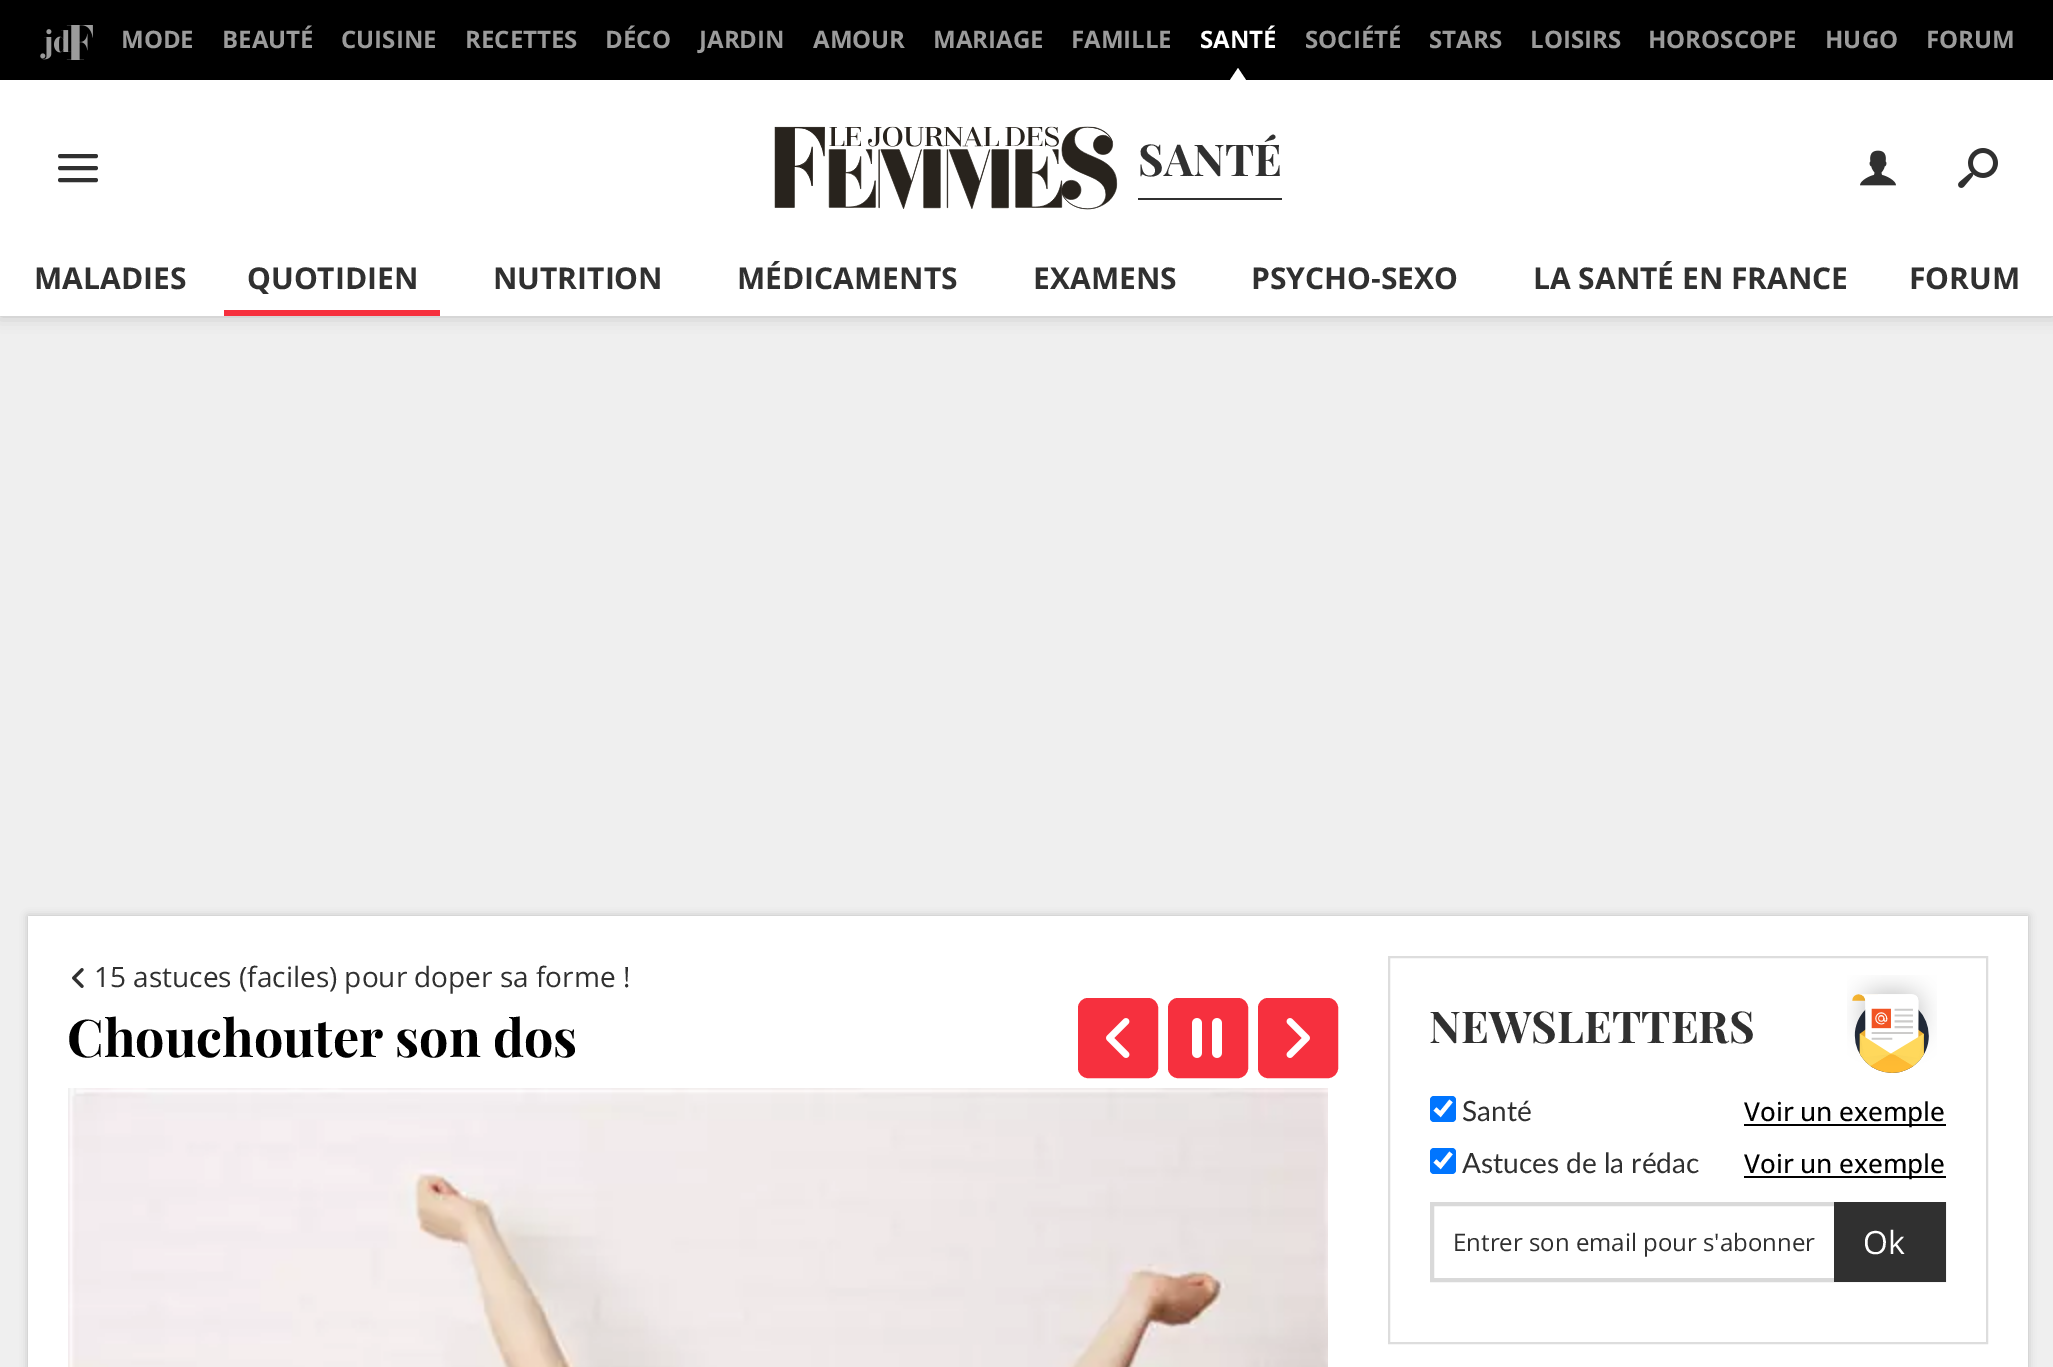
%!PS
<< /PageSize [2053 1367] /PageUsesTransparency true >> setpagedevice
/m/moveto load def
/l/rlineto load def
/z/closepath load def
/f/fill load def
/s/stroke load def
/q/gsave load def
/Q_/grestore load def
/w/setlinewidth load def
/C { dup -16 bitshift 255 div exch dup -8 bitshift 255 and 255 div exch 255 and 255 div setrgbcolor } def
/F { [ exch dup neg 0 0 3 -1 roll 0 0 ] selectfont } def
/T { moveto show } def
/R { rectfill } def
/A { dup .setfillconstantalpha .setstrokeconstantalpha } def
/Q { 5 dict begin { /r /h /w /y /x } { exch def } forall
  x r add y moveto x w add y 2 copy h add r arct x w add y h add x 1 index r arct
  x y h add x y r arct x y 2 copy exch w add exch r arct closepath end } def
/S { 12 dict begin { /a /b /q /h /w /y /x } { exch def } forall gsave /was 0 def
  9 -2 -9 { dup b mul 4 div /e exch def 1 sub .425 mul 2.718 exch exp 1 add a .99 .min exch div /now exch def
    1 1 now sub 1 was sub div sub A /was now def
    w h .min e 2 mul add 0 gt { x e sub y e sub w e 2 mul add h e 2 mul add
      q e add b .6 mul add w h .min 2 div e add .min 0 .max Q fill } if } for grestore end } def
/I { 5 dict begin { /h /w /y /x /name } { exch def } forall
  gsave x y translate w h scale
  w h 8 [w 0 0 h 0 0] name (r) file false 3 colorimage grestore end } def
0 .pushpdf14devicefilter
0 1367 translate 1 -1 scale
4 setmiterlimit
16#EFEFEF C
0 0 2053 1367 R
16#000000 C
0 0 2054 316 0 8 .2 S
16#FFFFFF C
0 80 2053 236 R
16#000000 C
0 0 2053 80 R
(1.rgb) 40 25 53 35 I
/OpenSans-Bold 24 F
16#9B9B9B C
(MODE) 121 48 T
(BEAUTÉ) 222 48 T
(CUISINE) 341 48 T
(RECETTES) 465 48 T
(DÉCO) 605 48 T
(JARDIN) 699 48 T
(AMOUR) 813 48 T
(MARIAGE) 933 48 T
(FAMILLE) 1071 48 T
16#FFFFFF C
(SANTÉ) 1200 48 T
1246 80 m -16 0 l 8 -12 l z f
16#9B9B9B C
(SOCIÉTÉ) 1305 48 T
(STARS) 1429 48 T
(LOISIRS) 1530 48 T
(HOROSCOPE) 1648 48 T
(HUGO) 1825 48 T
(FORUM) 1926 48 T
16#303030 C
4 w
1 setlinecap
60 168 m 36 0 l 60 156 m 36 0 l 60 180 m 36 0 l s
(2.rgb) 774 126 344 84 I
1138 198 144 2 R
/PlayfairDisplay-Bold 44 F
(SANTÉ) 1138 176 T
(3.rgb) 1860 150 36 36 I
(4.rgb) 1958 148 40 40 I
/OpenSans-Bold 30 F
(MALADIES) 34 289 T
16#F6303E C
224 310 216 6 R
16#303030 C
(QUOTIDIEN) 247 289 T
(NUTRITION) 493 289 T
(MÉDICAMENTS) 737 289 T
(EXAMENS) 1033 289 T
(PSYCHO-SEXO) 1251 289 T
(LA SANTÉ EN FRANCE) 1533 289 T
(FORUM) 1909 289 T
16#FFFFFF C
28 916 2000 451 R
q
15 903 m 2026 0 l 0 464 l -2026 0 l z 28 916 m 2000 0 l 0 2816 l -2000 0 l z eoclip newpath
16#000000 C
28 916 2000 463 0 4 .2 S
Q_
(5.rgb) 72 968 12 20 I
/OpenSans-Regular 28 F
16#303030 C
(15 astuces \(faciles\) pour doper sa forme !) 94 987 T
/PlayfairDisplay-Bold 52 F
16#000000 C
(Chouchouter son dos) 67 1057 T
16#F6303E C
1079 999 78 78 9 Q q f Q_
2 w
0 setlinecap
s
(6.rgb) 1106 1018 24 40 I
1169 999 78 78 9 Q q f Q_
s
(7.rgb) 1192 1018 30 40 I
1259 999 78 78 9 Q q f Q_
s
(8.rgb) 1286 1018 24 40 I
(9.rgb) 68 1088 1260 279 I
16#DDDDDD C
1389 957 598 386 rectstroke
/PlayfairDisplay-Bold 44 F
16#303030 C
(NEWSLETTERS) 1429 1043 T
(10.rgb) 1847 975 90 98 I
16#0075FF C
1430 1096 26 26 4 Q f
16#FFFFFF C
4.2 w
1435 1109 m 5.5 5 l 10.5 -13 l s
/Lato-Regular 28 F
16#303030 C
(Santé) 1462 1121 T
16#000000 C
1744 1124 202 2 R
/OpenSans-Medium 26 F
(Voir un exemple) 1744 1121 T
16#0075FF C
1430 1148 26 26 4 Q f
16#FFFFFF C
1435 1161 m 5.5 5 l 10.5 -13 l s
/Lato-Regular 28 F
16#303030 C
(Astuces de la rédac) 1462 1173 T
16#000000 C
1744 1176 202 2 R
/OpenSans-Medium 26 F
(Voir un exemple) 1744 1173 T
16#D9D9D9 C
4 w
1432 1204 512 76 rectstroke
/OpenSans-Regular 24 F
16#303030 C
(Entrer son email pour s'abonner) 1453 1251 T
1834 1202 112 80 R
/OpenSans-Regular 32 F
16#FFFFFF C
(Ok) 1863 1254 T
.poppdf14devicefilter showpage
